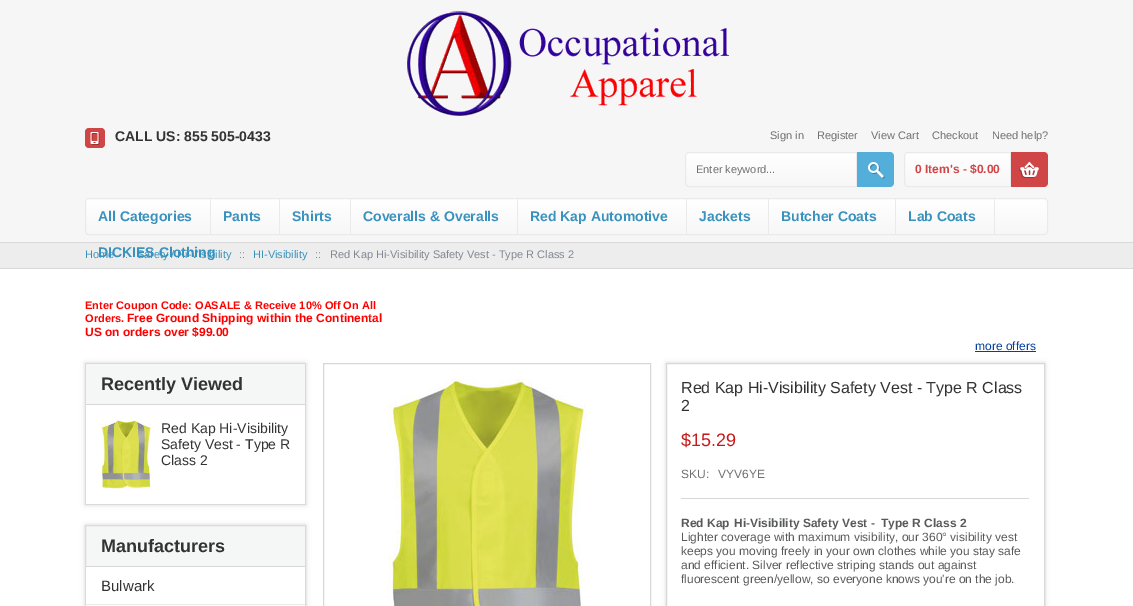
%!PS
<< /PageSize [1133 606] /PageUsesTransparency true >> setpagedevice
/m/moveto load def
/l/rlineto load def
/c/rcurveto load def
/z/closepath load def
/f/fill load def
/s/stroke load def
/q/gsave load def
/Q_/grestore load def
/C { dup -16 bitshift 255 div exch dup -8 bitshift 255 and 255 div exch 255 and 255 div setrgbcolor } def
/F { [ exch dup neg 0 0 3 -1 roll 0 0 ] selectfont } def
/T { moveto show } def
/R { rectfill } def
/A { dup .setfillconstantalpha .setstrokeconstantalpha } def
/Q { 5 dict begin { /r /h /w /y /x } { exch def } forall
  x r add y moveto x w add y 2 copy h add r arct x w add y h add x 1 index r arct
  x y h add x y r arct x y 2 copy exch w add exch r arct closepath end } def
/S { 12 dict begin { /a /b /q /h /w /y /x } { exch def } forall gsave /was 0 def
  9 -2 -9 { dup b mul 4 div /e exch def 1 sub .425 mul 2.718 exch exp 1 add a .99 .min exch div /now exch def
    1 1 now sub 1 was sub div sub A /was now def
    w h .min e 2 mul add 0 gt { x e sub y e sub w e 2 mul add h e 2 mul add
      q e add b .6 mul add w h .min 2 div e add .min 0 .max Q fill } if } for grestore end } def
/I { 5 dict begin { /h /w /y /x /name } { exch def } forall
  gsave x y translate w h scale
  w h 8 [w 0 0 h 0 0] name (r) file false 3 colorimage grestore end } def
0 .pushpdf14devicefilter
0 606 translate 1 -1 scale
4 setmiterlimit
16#FFFFFF C
0 0 1133 606 R
16#F6F6F6 C
0 0 1133 242 R
16#D8D8D8 C
0 268 1133 1 R
(1.rgb) 407 11 322 105 I
16#D04545 C
85 128 20 20 4 Q f
(2.rgb) 90 132 10 13 I
/LiberationSans-Bold 14 F
16#333333 C
(CALL US: 855 505-0433) 115 141 T
/LiberationSans-Regular 11 F
16#6F6F6F C
(Sign in) 770 139 T
(Register) 817 139 T
(View Cart) 871 139 T
(Checkout) 932 139 T
(Need help?) 992 139 T
q
689 152 m 168 0 l 0 35 l -168 0 l -2 0 -4 -2 -4 -4 c 0 -27 l 0 -2 2 -4 4 -4 c z clip newpath
q 685 153 m 171 0 l 0 33 l -171 0 l z clip newpath
<< /ShadingType 2 /ColorSpace /DeviceRGB /Coords [771 153 771 186] /Extend [true true] /Function << /FunctionType 2 /Domain [0 1] /C0 [1 1 1] /C1 [.969 .969 .969] /N 1 >> >> shfill Q_
Q_
16#EAEAEA C
689 152.5 m 167.5 0 l 0 34 l -167.5 0 l -2 0 -3.5 -1.5 -3.5 -3.5 c 0 -27 l 0 -2 1.5 -3.5 3.5 -3.5 c z s
16#6F6F6F C
(Enter keyword...) 696 173 T
16#54AEDA C
857 152 m 33 0 l 2 0 4 2 4 4 c 0 27 l 0 2 -2 4 -4 4 c -33 0 l z f
(3.rgb) 868 162 17 17 I
q
908 152 m 103 0 l 0 35 l -103 0 l -2 0 -4 -2 -4 -4 c 0 -27 l 0 -2 2 -4 4 -4 c z clip newpath
q 904 153 m 106 0 l 0 33 l -106 0 l z clip newpath
<< /ShadingType 2 /ColorSpace /DeviceRGB /Coords [958 153 958 186] /Extend [true true] /Function << /FunctionType 2 /Domain [0 1] /C0 [1 1 1] /C1 [.969 .969 .969] /N 1 >> >> shfill Q_
Q_
16#EAEAEA C
908 152.5 m 102.5 0 l 0 34 l -102.5 0 l -2 0 -3.5 -1.5 -3.5 -3.5 c 0 -27 l 0 -2 1.5 -3.5 3.5 -3.5 c z s
/LiberationSans-Bold 12 F
16#D14546 C
(0 Item's - $0.00) 915 173 T
16#D04545 C
1011 152 m 33 0 l 2 0 4 2 4 4 c 0 27 l 0 2 -2 4 -4 4 c -33 0 l z f
(4.rgb) 1019 162 20 16 I
q
85 198 963 37 4 Q clip newpath
q 85 199 m 963 0 l 0 35 l -963 0 l z clip newpath
<< /ShadingType 2 /ColorSpace /DeviceRGB /Coords [567 199 567 234] /Extend [true true] /Function << /FunctionType 2 /Domain [0 1] /C0 [1 1 1] /C1 [.969 .969 .969] /N 1 >> >> shfill Q_
Q_
16#EAEAEA C
85.5 198.5 962 36 3.5 Q s
210 199 1 36 R
86 234 2 1 R
/LiberationSans-Bold 14 F
16#3892BD C
(All Categories) 98 221 T
16#EAEAEA C
279 199 1 36 R
16#3892BD C
(Pants) 223 221 T
16#EAEAEA C
350 199 1 36 R
16#3892BD C
(Shirts) 292 221 T
16#EAEAEA C
517 199 1 36 R
16#3892BD C
(Coveralls & Overalls) 363 221 T
16#EAEAEA C
686 199 1 36 R
16#3892BD C
(Red Kap Automotive) 530 221 T
16#EAEAEA C
768 199 1 36 R
16#3892BD C
(Jackets) 699 221 T
16#EAEAEA C
895 199 1 36 R
16#3892BD C
(Butcher Coats) 781 221 T
16#EAEAEA C
994 199 1 36 R
16#3892BD C
(Lab Coats) 908 221 T
16#EDEDED C
0 243 1133 25 R
/LiberationSans-Regular 11 F
16#3892BD C
(Home) 85 258 T
16#818891 C
(::) 122 258 T
16#3892BD C
(Safety / Hi-Visibility) 137 258 T
/LiberationSans-Bold 14 F
(DICKIES Clothing) 98 257 T
16#D8D8D8 C
0 242 1133 1 R
/LiberationSans-Regular 11 F
16#818891 C
(::) 239 258 T
16#3892BD C
(HI-Visibility) 253 258 T
16#818891 C
(::) 315 258 T
(Red Kap Hi-Visibility Safety Vest - Type R Class 2) 330 258 T
/LiberationSans-Bold 11 F
16#FF0000 C
(Enter Coupon Code: OASALE & Receive 10% Off On All) 85 309 T
(Orders.) 85 322 T
/LiberationSans-Bold 12 F
(Free Ground Shipping within the Continental) 127 322 T
(US on orders over $99.00) 85 336 T
/LiberationSans-Regular 12 F
16#043FA0 C
(more offers) 975 350 T
975 351 61 1 R
16#D8D8D8 C
85 363 221 142 0 2.5 1 S
16#F5F6F6 C
86 364 219 40 R
16#DADADA C
85 363 221 1 R
305 363 1 142 R
85 363 1 142 R
16#D8D8D8 C
86 404 219 1 R
/LiberationSans-Bold 18 F
16#333333 C
(Recently Viewed) 101 390 T
16#FFFFFF C
86 405 219 99 R
16#DADADA C
86 504 219 1 R
(5.rgb) 101 420 50 69 I
/LiberationSans-Regular 14 F
16#333333 C
(Red Kap Hi-Visibility) 161 433 T
(Safety Vest - Type R) 161 449 T
(Class 2) 161 465 T
16#D8D8D8 C
85 525 221 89 0 2.5 1 S
16#F5F6F6 C
86 526 219 40 R
16#DADADA C
85.5 525.5 220 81 rectstroke
16#D8D8D8 C
86 566 219 1 R
/LiberationSans-Bold 18 F
16#333333 C
(Manufacturers) 101 552 T
16#FFFFFF C
86 567 219 39 R
16#EAEAEA C
86 604 219 1 R
/LiberationSans-Regular 15 F
16#333333 C
(Bulwark) 101 591 T
16#D8D8D8 C
323.5 363.5 327 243 rectstroke
(6.rgb) 388 379 198 227 I
q
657 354 m 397 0 l 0 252 l -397 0 l z 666 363 m 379 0 l 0 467 l -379 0 l z eoclip newpath
666 363 379 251 0 2.5 1 S
Q_
666.5 363.5 378 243 rectstroke
/LiberationSans-Regular 16 F
16#333333 C
(Red Kap Hi-Visibility Safety Vest - Type R Class) 681 393 T
(2) 681 411 T
/LiberationSans-Regular 18 F
16#C71919 C
($15.29) 681 446 T
16#D8D8D8 C
681 498 348 1 R
/LiberationSans-Regular 12 F
16#6F6F6F C
(SKU:) 681 478 T
(VYV6YE) 718 478 T
/LiberationSans-Bold 12 F
16#58595B C
(Red Kap) 681 527 T
(Hi-Visibility Safety Vest -) 734 527 T
(Type R Class 2) 881 527 T
/LiberationSans-Regular 12 F
(Lighter coverage with maximum visibility, our 360° visibility vest) 681 541 T
(keeps you moving freely in your own clothes while you stay safe) 681 555 T
(and efficient. Silver reflective striping stands out against) 681 569 T
(fluorescent green/yellow, so everyone knows you're on the job.) 681 583 T
.poppdf14devicefilter showpage
